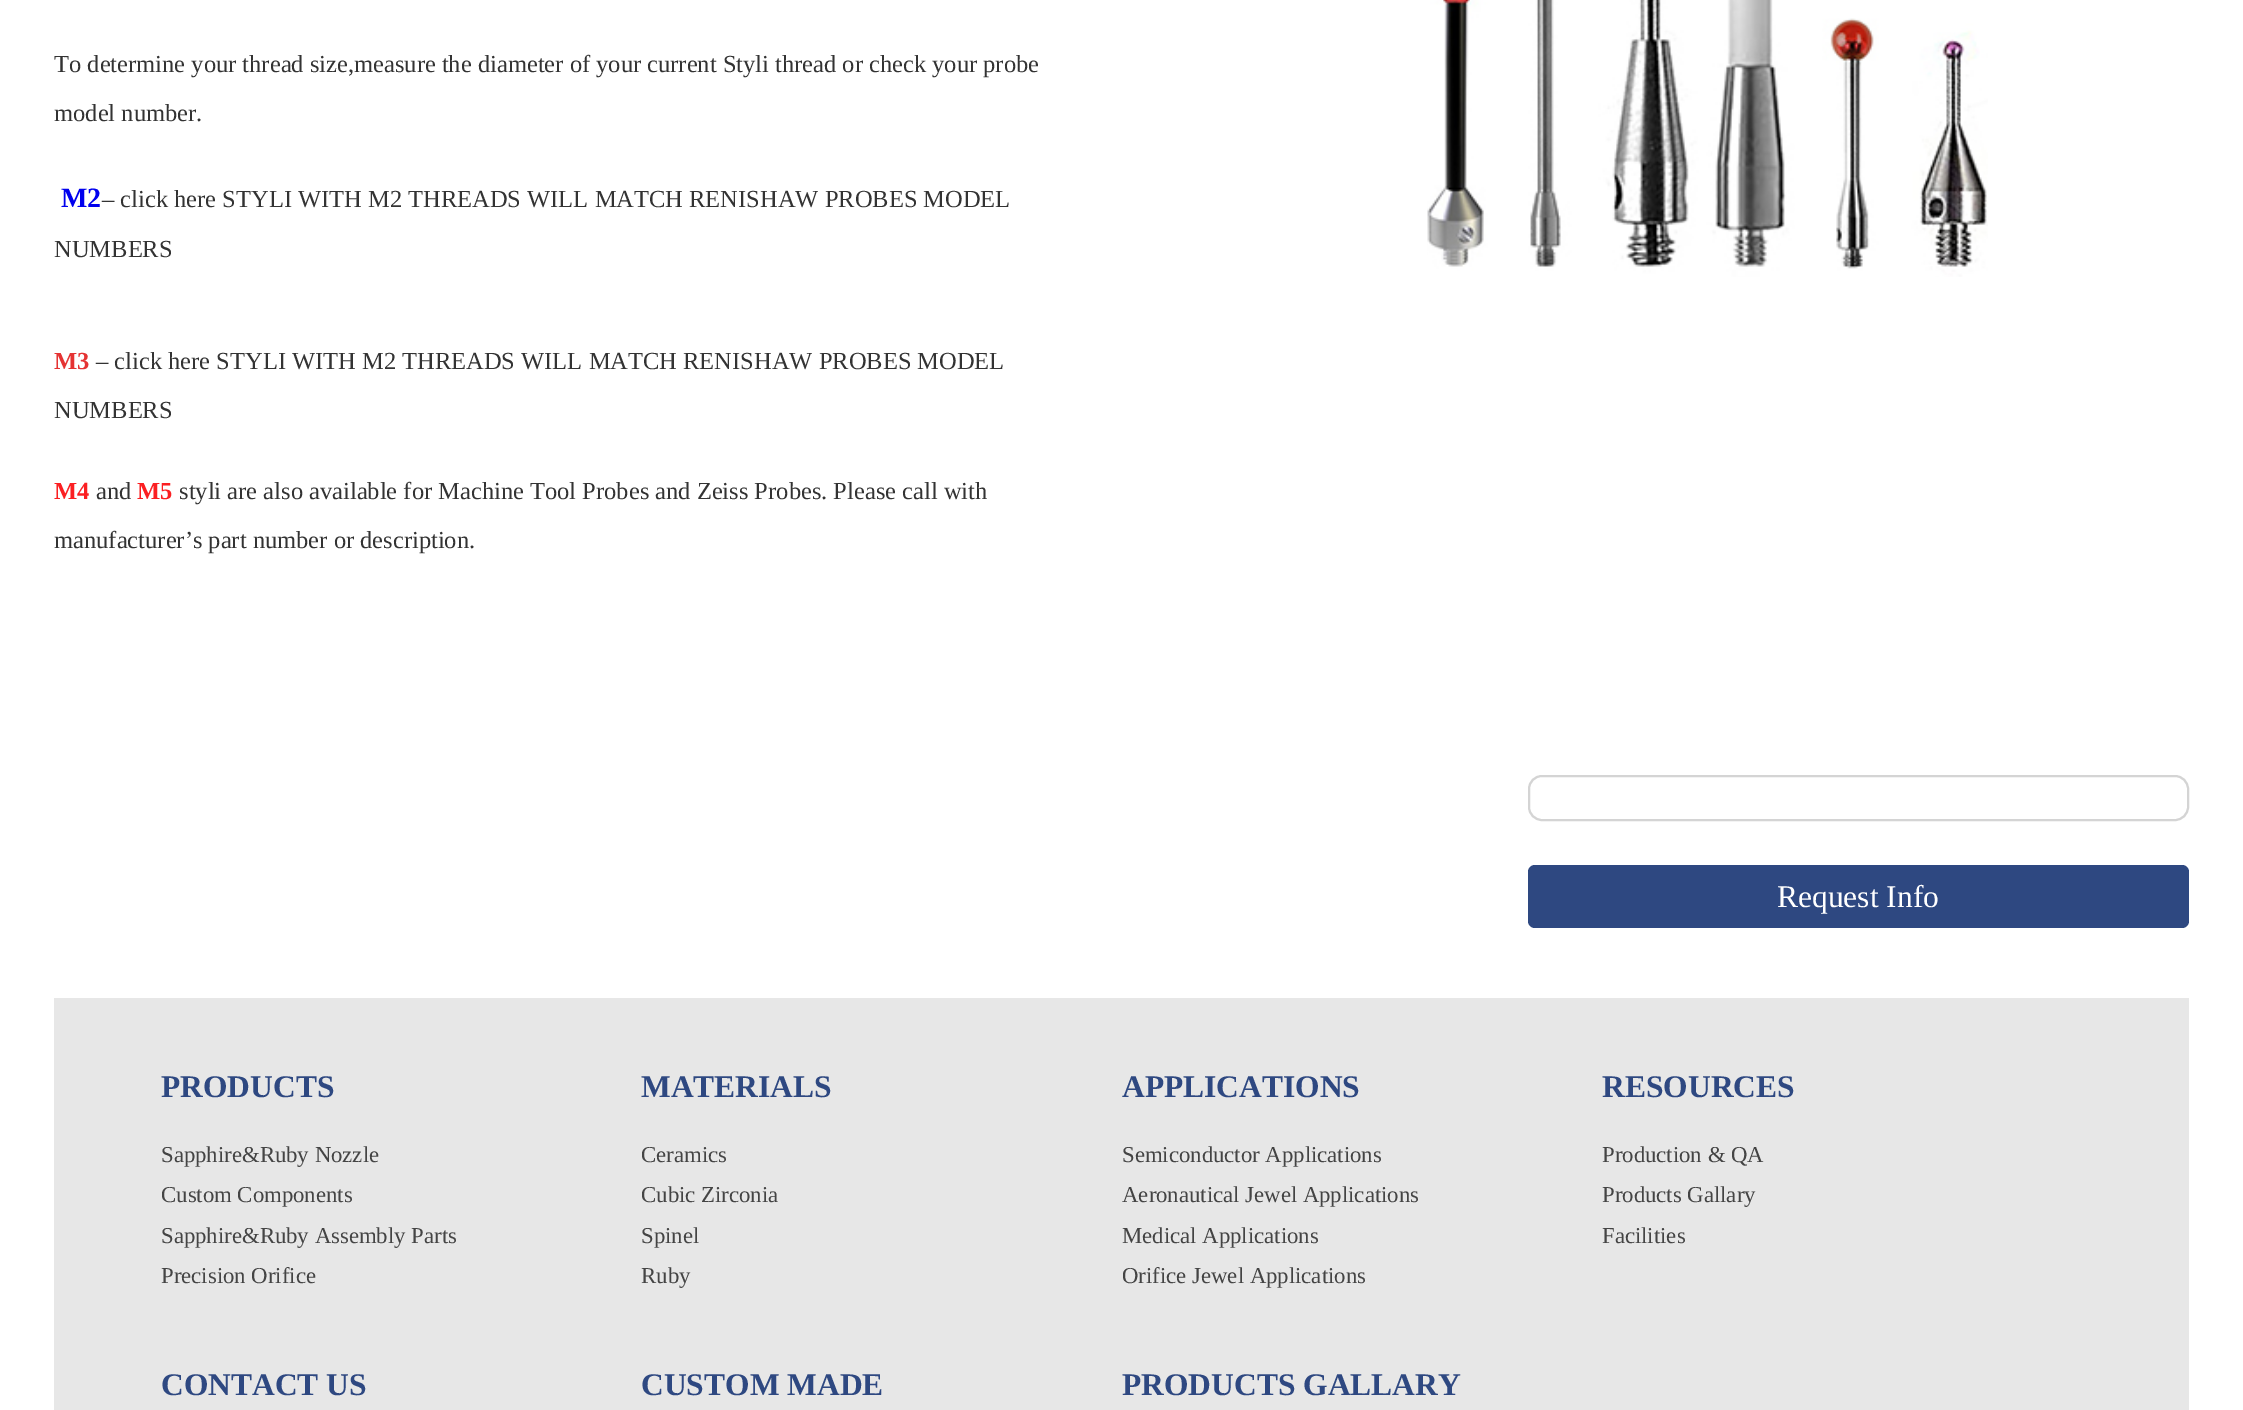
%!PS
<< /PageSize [2243 1410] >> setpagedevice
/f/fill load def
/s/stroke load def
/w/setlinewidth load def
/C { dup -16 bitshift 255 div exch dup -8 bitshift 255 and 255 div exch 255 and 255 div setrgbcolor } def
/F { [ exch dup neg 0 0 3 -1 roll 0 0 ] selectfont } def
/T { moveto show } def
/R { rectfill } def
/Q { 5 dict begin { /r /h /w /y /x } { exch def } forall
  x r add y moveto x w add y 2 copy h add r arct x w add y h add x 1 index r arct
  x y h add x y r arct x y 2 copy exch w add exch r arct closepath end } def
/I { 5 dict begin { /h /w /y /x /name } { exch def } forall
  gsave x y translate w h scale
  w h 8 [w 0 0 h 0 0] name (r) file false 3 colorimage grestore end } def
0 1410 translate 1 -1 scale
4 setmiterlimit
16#FFFFFF C
0 0 2243 1410 R
/LiberationSerif-Regular 24.5 F
16#333333 C
(To determine your thread size,measure the diameter of your current Styli thread or check your probe) 54 72 T
(model number.) 54 121 T
/LiberationSerif-Bold 28 F
16#0000EE C
(M2) 61 207 T
/LiberationSerif-Regular 24.5 F
16#333333 C
(– click here STYLI WITH M2 THREADS WILL MATCH RENISHAW PROBES MODEL) 102 207 T
(NUMBERS) 54 257 T
/LiberationSerif-Bold 24.5 F
16#E53333 C
(M3) 54 369 T
/LiberationSerif-Regular 24.5 F
16#333333 C
(– click here STYLI WITH M2 THREADS WILL MATCH RENISHAW PROBES MODEL) 96 369 T
(NUMBERS) 54 418 T
/LiberationSerif-Bold 24.5 F
16#FB1F22 C
(M4) 54 499 T
/LiberationSerif-Regular 24.5 F
16#333333 C
(and) 96 499 T
/LiberationSerif-Bold 24.5 F
16#FB1F22 C
(M5) 137 499 T
/LiberationSerif-Regular 24.5 F
16#333333 C
(styli are also available for Machine Tool Probes and Zeiss Probes. Please call with) 179 499 T
(manufacturer’s part number or description.) 54 548 T
(1.rgb) 1427 0 561 277 I
16#D4D4D4 C
2 w
1529 776 659 44 13 Q s
16#2E4881 C
1528 865 661 63 7 Q f
/LiberationSerif-Regular 31.5 F
16#FFFFFF C
(Request Info) 1777 907 T
16#E7E7E7 C
54 998 2135 412 R
/LiberationSerif-Bold 31.5 F
16#2E4881 C
(PRODUCTS) 161 1097 T
/LiberationSerif-Regular 22.75 F
16#444444 C
(Sapphire&Ruby Nozzle) 161 1162 T
(Custom Components) 161 1202 T
(Sapphire&Ruby Assembly Parts) 161 1243 T
(Precision Orifice) 161 1283 T
/LiberationSerif-Bold 31.5 F
16#2E4881 C
(MATERIALS) 641 1097 T
/LiberationSerif-Regular 22.75 F
16#444444 C
(Ceramics) 641 1162 T
(Cubic Zirconia) 641 1202 T
(Spinel) 641 1243 T
(Ruby) 641 1283 T
/LiberationSerif-Bold 31.5 F
16#2E4881 C
(APPLICATIONS) 1122 1097 T
/LiberationSerif-Regular 22.75 F
16#444444 C
(Semiconductor Applications) 1122 1162 T
(Aeronautical Jewel Applications) 1122 1202 T
(Medical Applications) 1122 1243 T
(Orifice Jewel Applications) 1122 1283 T
/LiberationSerif-Bold 31.5 F
16#2E4881 C
(RESOURCES) 1602 1097 T
/LiberationSerif-Regular 22.75 F
16#444444 C
(Production & QA) 1602 1162 T
(Products Gallary) 1602 1202 T
(Facilities) 1602 1243 T
/LiberationSerif-Bold 31.5 F
16#2E4881 C
(CONTACT US) 161 1395 T
(CUSTOM MADE) 641 1395 T
(PRODUCTS GALLARY) 1122 1395 T
showpage
